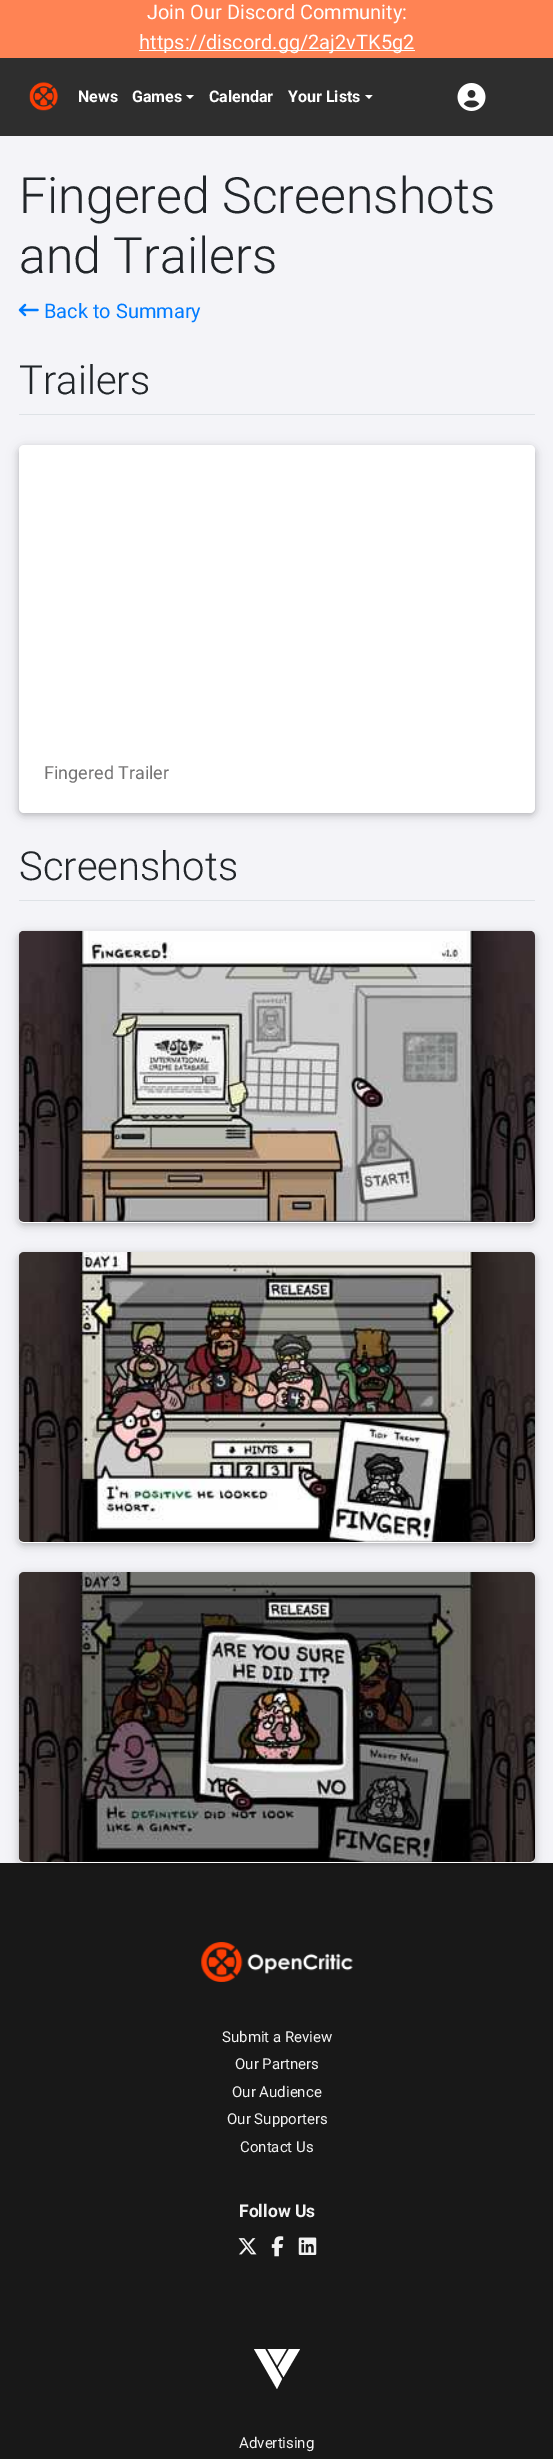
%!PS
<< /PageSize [553 2459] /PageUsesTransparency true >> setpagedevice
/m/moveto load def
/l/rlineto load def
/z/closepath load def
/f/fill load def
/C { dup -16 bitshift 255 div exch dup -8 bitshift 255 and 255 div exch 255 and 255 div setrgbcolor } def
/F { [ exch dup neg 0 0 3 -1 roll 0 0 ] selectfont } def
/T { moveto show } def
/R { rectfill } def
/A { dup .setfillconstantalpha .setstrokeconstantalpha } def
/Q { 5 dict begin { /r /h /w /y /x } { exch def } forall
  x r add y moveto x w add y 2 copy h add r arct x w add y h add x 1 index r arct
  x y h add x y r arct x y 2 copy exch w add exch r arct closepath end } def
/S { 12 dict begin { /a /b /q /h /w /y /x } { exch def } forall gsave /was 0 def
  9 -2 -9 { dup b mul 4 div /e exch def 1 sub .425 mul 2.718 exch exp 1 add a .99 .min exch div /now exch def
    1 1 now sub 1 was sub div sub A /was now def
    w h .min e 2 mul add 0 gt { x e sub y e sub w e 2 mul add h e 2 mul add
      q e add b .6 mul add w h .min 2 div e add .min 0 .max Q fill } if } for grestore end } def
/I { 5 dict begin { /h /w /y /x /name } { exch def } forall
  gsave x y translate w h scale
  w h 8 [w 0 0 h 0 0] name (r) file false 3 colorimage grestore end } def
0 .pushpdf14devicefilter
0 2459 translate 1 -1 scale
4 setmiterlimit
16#F4F4F8 C
0 0 553 2459 R
16#FF8354 C
0 0 553 58 R
/Roboto-Regular 20 F
16#FFFFFF C
(Join Our Discord Community:) 147 19 T
139 50 276 1 R
(https://discord.gg/2aj2vTK5g2) 139 49 T
16#2E2E2E C
0 58 553 78 R
(1.rgb) 29 82 29 29 I
/Roboto-Bold 16 F
16#FFFFFF C
(News) 78 102 T
(Games) 132 102 T
186 95 m 8 0 l -4 4 l z f
(Calendar) 209 102 T
(Your Lists) 288 102 T
365 95 m 7.5 0 l -3.5 4 l z f
(2.rgb) 457 83 29 28 I
/Roboto-Light 50 F
16#212529 C
(Fingered Screenshots) 19 213 T
(and Trailers) 19 273 T
(3.rgb) 18 303 21 14 I
/Roboto-Regular 20 F
16#007BFF C
(Back to Summary) 44 318 T
16#DEE2E6 C
19 414 516 1 R
/Roboto-Light 40 F
16#212529 C
(Trailers) 19 394 T
16#000000 C
19 448 516 367 5 6 .12 S
19 448 516 367 5 3 .16 S
16#FFFFFF C
19 445 516 368 5 Q f
/Roboto-Regular 18 F
16#747373 C
(Fingered Trailer) 44 779 T
16#DEE2E6 C
19 900 516 1 R
/Roboto-Light 40 F
16#212529 C
(Screenshots) 19 880 T
16#000000 C
19 934 516 291 5 6 .12 S
19 934 516 291 5 3 .16 S
16#FFFFFF C
19 931 516 292 5 Q f
(4.rgb) 18 930 517 292 I
16#000000 C
19 1255 516 290 5 6 .12 S
19 1255 516 290 5 3 .16 S
16#FFFFFF C
19 1253 516 290 5 Q f
(5.rgb) 18 1252 517 290 I
16#181818 C
0 1863 553 596 R
16#000000 C
19 1575 516 290 5 6 .12 S
19 1575 516 290 5 3 .16 S
16#FFFFFF C
19 1573 516 290 5 Q f
(6.rgb) 18 1572 517 290 I
(7.rgb) 201 1942 152 40 I
/Roboto-Regular 15 F
16#F2F2F2 C
(Submit a Review) 222 2042 T
(Our Partners) 235 2069 T
(Our Audience) 232 2097 T
(Our Supporters) 227 2124 T
(Contact Us) 240 2152 T
/Roboto-Bold 17.5 F
(Follow Us) 239 2217 T
(8.rgb) 238 2238 19 17 I
(9.rgb) 271 2236 13 21 I
(10.rgb) 298 2237 19 18 I
16#FFFFFF C
254 2349 m 23 40 l 5 -10 l -17 -30 l z f
286.5 2349 m -19 0 l 9.5 16.5 l z f
289 2349 m -11 18.5 l 5.5 9.5 l 16.5 -28 l z f
/Roboto-Regular 15 F
16#F2F2F2 C
(Advertising) 239 2448 T
.poppdf14devicefilter showpage
